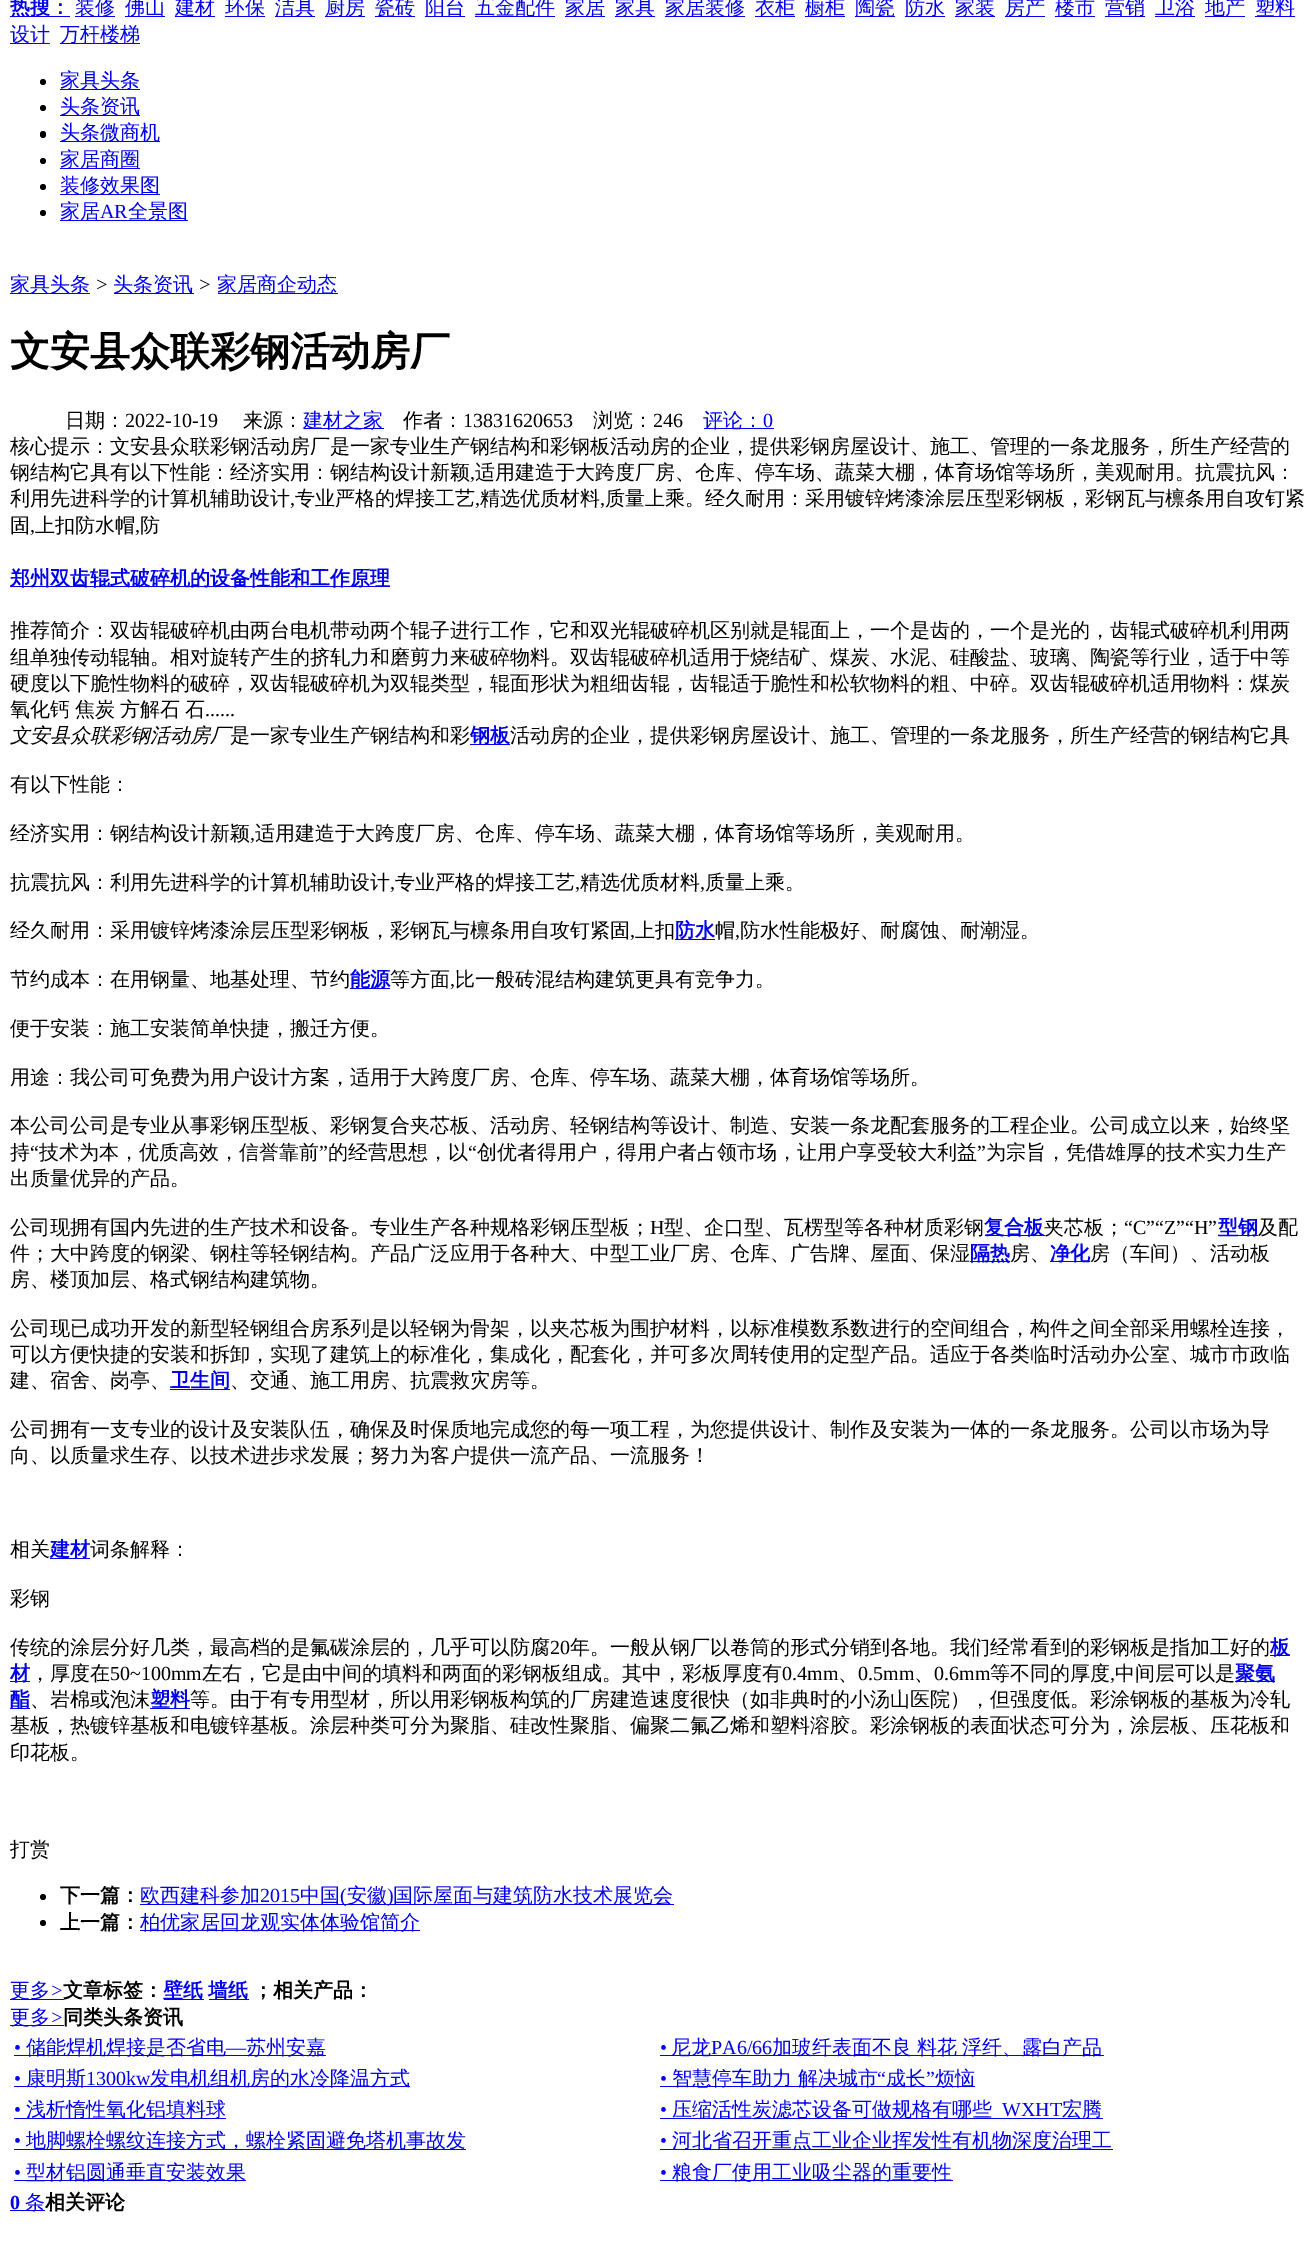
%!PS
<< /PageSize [1315 2249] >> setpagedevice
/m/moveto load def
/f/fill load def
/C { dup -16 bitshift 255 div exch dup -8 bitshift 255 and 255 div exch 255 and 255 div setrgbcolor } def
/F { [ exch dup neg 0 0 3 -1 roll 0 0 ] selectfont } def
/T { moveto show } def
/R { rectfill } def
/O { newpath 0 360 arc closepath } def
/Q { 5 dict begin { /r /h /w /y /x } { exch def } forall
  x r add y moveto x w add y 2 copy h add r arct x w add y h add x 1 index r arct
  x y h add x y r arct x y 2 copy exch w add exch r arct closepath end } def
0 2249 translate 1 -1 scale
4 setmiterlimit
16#FFFFFF C
0 0 1315 2249 R
16#0000EE C
10 16 60 1 R
/WenQuanYiZenHei-Bold 20 F
(热搜：) 10 14 T
75 16 40 1 R
/WenQuanYiZenHei-Medium 20 F
(装修) 75 14 T
125 16 40 1 R
(佛山) 125 14 T
175 16 40 1 R
(建材) 175 14 T
225 16 40 1 R
(环保) 225 14 T
275 16 40 1 R
(洁具) 275 14 T
325 16 40 1 R
(厨房) 325 14 T
375 16 40 1 R
(瓷砖) 375 14 T
425 16 40 1 R
(阳台) 425 14 T
475 16 80 1 R
(五金配件) 475 14 T
565 16 40 1 R
(家居) 565 14 T
615 16 40 1 R
(家具) 615 14 T
665 16 80 1 R
(家居装修) 665 14 T
755 16 40 1 R
(衣柜) 755 14 T
805 16 40 1 R
(橱柜) 805 14 T
855 16 40 1 R
(陶瓷) 855 14 T
905 16 40 1 R
(防水) 905 14 T
955 16 40 1 R
(家装) 955 14 T
1005 16 40 1 R
(房产) 1005 14 T
1055 16 40 1 R
(楼市) 1055 14 T
1105 16 40 1 R
(营销) 1105 14 T
1155 16 40 1 R
(卫浴) 1155 14 T
1205 16 40 1 R
(地产) 1205 14 T
1255 16 40 1 R
(塑料) 1255 14 T
10 43 40 1 R
(设计) 10 41 T
60 43 80 1 R
(万杆楼梯) 60 41 T
16#000000 C
43 82 3 O f
16#0000EE C
60 89 80 1 R
(家具头条) 60 87 T
16#000000 C
43 108 3 O f
16#0000EE C
60 115 80 1 R
(头条资讯) 60 113 T
16#000000 C
40 131 6 7 3 Q f
16#0000EE C
60 141 100 1 R
(头条微商机) 60 139 T
16#000000 C
43 161 3 O f
16#0000EE C
60 168 80 1 R
(家居商圈) 60 166 T
16#000000 C
43 187 3 O f
16#0000EE C
60 194 100 1 R
(装修效果图) 60 192 T
16#000000 C
43 213 3 O f
16#0000EE C
60 220 128 1 R
(家居) 60 218 T
/LiberationSerif-Regular 20 F
(AR) 100 218 T
/WenQuanYiZenHei-Medium 20 F
(全景图) 128 218 T
10 293 80 1 R
(家具头条) 10 291 T
/LiberationSerif-Italic 20 F
16#000000 C
(>) 95 291 T
16#0000EE C
114 293 80 1 R
/WenQuanYiZenHei-Medium 20 F
(头条资讯) 113 291 T
/LiberationSerif-Italic 20 F
16#000000 C
(>) 198 291 T
16#0000EE C
218 293 120 1 R
/WenQuanYiZenHei-Medium 20 F
(家居商企动态) 217 291 T
/WenQuanYiZenHei-Bold 40 F
16#000000 C
(文安县众联彩钢活动房厂) 10 365 T
/WenQuanYiZenHei-Medium 20 F
(日期：) 65 427 T
/LiberationSerif-Regular 20 F
(2022-10-19) 125 427 T
/WenQuanYiZenHei-Medium 20 F
(来源：) 243 427 T
16#0000EE C
304 428 80 1 R
(建材之家) 303 427 T
16#000000 C
(作者：) 403 427 T
/LiberationSerif-Regular 20 F
(13831620653) 463 427 T
/WenQuanYiZenHei-Medium 20 F
(浏览：) 593 427 T
/LiberationSerif-Regular 20 F
(246) 653 427 T
16#0000EE C
704 428 70 1 R
/WenQuanYiZenHei-Medium 20 F
(评论：) 703 427 T
/LiberationSerif-Regular 20 F
(0) 763 427 T
/WenQuanYiZenHei-Medium 20 F
16#000000 C
(核心提示：文安县众联彩钢活动房厂是一家专业生产钢结构和彩钢板活动房的企业，提供彩钢房屋设计、施工、管理的一条龙服务，所生产经营的) 10 453 T
(钢结构它具有以下性能：经济实用：钢结构设计新颖) 10 479 T
/LiberationSerif-Regular 20 F
(,) 470 479 T
/WenQuanYiZenHei-Medium 20 F
(适用建造于大跨度厂房、仓库、停车场、蔬菜大棚，体育场馆等场所，美观耐用。抗震抗风：) 475 479 T
(利用先进科学的计算机辅助设计) 10 505 T
/LiberationSerif-Regular 20 F
(,) 290 505 T
/WenQuanYiZenHei-Medium 20 F
(专业严格的焊接工艺) 295 505 T
/LiberationSerif-Regular 20 F
(,) 475 505 T
/WenQuanYiZenHei-Medium 20 F
(精选优质材料) 480 505 T
/LiberationSerif-Regular 20 F
(,) 600 505 T
/WenQuanYiZenHei-Medium 20 F
(质量上乘。经久耐用：采用镀锌烤漆涂层压型彩钢板，彩钢瓦与檩条用自攻钉紧) 605 505 T
(固) 10 532 T
/LiberationSerif-Regular 20 F
(,) 30 532 T
/WenQuanYiZenHei-Medium 20 F
(上扣防水帽) 35 532 T
/LiberationSerif-Regular 20 F
(,) 135 532 T
/WenQuanYiZenHei-Medium 20 F
(防) 140 532 T
16#0000EE C
10 586 380 1 R
/WenQuanYiZenHei-Bold 20 F
(郑州双齿辊式破碎机的设备性能和工作原理) 10 585 T
/WenQuanYiZenHei-Medium 20 F
16#000000 C
(推荐简介：双齿辊破碎机由两台电机带动两个辊子进行工作，它和双光辊破碎机区别就是辊面上，一个是齿的，一个是光的，齿辊式破碎机利用两) 10 637 T
(组单独传动辊轴。相对旋转产生的挤轧力和磨剪力来破碎物料。双齿辊破碎机适用于烧结矿、煤炭、水泥、硅酸盐、玻璃、陶瓷等行业，适于中等) 10 664 T
(硬度以下脆性物料的破碎，双齿辊破碎机为双辊类型，辊面形状为粗细齿辊，齿辊适于脆性和松软物料的粗、中碎。双齿辊破碎机适用物料：煤炭) 10 690 T
10 716 m -1 0 32 (氧化钙 焦炭 方解石 石) widthshow
/LiberationSerif-Regular 20 F
(......) 205 716 T
/WenQuanYiZenHei-MediumItalic 20 F
(文安县众联彩钢活动房厂) 10 742 T
/WenQuanYiZenHei-Medium 20 F
(是一家专业生产钢结构和彩) 230 742 T
16#0000EE C
470 744 40 1 R
/WenQuanYiZenHei-Bold 20 F
(钢板) 470 742 T
/WenQuanYiZenHei-Medium 20 F
16#000000 C
(活动房的企业，提供彩钢房屋设计、施工、管理的一条龙服务，所生产经营的钢结构它具) 510 742 T
(有以下性能：) 10 791 T
(经济实用：钢结构设计新颖) 10 840 T
/LiberationSerif-Regular 20 F
(,) 250 840 T
/WenQuanYiZenHei-Medium 20 F
(适用建造于大跨度厂房、仓库、停车场、蔬菜大棚，体育场馆等场所，美观耐用。) 255 840 T
(抗震抗风：利用先进科学的计算机辅助设计) 10 889 T
/LiberationSerif-Regular 20 F
(,) 390 889 T
/WenQuanYiZenHei-Medium 20 F
(专业严格的焊接工艺) 395 889 T
/LiberationSerif-Regular 20 F
(,) 575 889 T
/WenQuanYiZenHei-Medium 20 F
(精选优质材料) 580 889 T
/LiberationSerif-Regular 20 F
(,) 700 889 T
/WenQuanYiZenHei-Medium 20 F
(质量上乘。) 705 889 T
(经久耐用：采用镀锌烤漆涂层压型彩钢板，彩钢瓦与檩条用自攻钉紧固) 10 937 T
/LiberationSerif-Regular 20 F
(,) 630 937 T
/WenQuanYiZenHei-Medium 20 F
(上扣) 635 937 T
16#0000EE C
675 939 40 1 R
/WenQuanYiZenHei-Bold 20 F
(防水) 675 937 T
/WenQuanYiZenHei-Medium 20 F
16#000000 C
(帽) 715 937 T
/LiberationSerif-Regular 20 F
(,) 735 937 T
/WenQuanYiZenHei-Medium 20 F
(防水性能极好、耐腐蚀、耐潮湿。) 740 937 T
(节约成本：在用钢量、地基处理、节约) 10 986 T
16#0000EE C
350 988 40 1 R
/WenQuanYiZenHei-Bold 20 F
(能源) 350 986 T
/WenQuanYiZenHei-Medium 20 F
16#000000 C
(等方面) 390 986 T
/LiberationSerif-Regular 20 F
(,) 450 986 T
/WenQuanYiZenHei-Medium 20 F
(比一般砖混结构建筑更具有竞争力。) 455 986 T
(便于安装：施工安装简单快捷，搬迁方便。) 10 1035 T
(用途：我公司可免费为用户设计方案，适用于大跨度厂房、仓库、停车场、蔬菜大棚，体育场馆等场所。) 10 1084 T
(本公司公司是专业从事彩钢压型板、彩钢复合夹芯板、活动房、轻钢结构等设计、制造、安装一条龙配套服务的工程企业。公司成立以来，始终坚) 10 1132 T
(持) 10 1159 T
/LiberationSerif-Regular 20 F
(“) 30 1159 T
/WenQuanYiZenHei-Medium 20 F
(技术为本，优质高效，信誉靠前) 39 1159 T
/LiberationSerif-Regular 20 F
(”) 319 1159 T
/WenQuanYiZenHei-Medium 20 F
(的经营思想，以) 328 1159 T
/LiberationSerif-Regular 20 F
(“) 468 1159 T
/WenQuanYiZenHei-Medium 20 F
(创优者得用户，得用户者占领市场，让用户享受较大利益) 477 1159 T
/LiberationSerif-Regular 20 F
(”) 977 1159 T
/WenQuanYiZenHei-Medium 20 F
(为宗旨，凭借雄厚的技术实力生产) 986 1159 T
(出质量优异的产品。) 10 1185 T
(公司现拥有国内先进的生产技术和设备。专业生产各种规格彩钢压型板；) 10 1234 T
/LiberationSerif-Regular 20 F
(H) 650 1234 T
/WenQuanYiZenHei-Medium 20 F
(型、企口型、瓦楞型等各种材质彩钢) 664 1234 T
16#0000EE C
985 1235 60 1 R
/WenQuanYiZenHei-Bold 20 F
(复合板) 984 1234 T
/WenQuanYiZenHei-Medium 20 F
16#000000 C
(夹芯板；) 1044 1234 T
/LiberationSerif-Regular 20 F
(“C”“Z”“H”) 1124 1234 T
16#0000EE C
1218 1235 40 1 R
/WenQuanYiZenHei-Bold 20 F
(型钢) 1218 1234 T
/WenQuanYiZenHei-Medium 20 F
16#000000 C
(及配) 1258 1234 T
(件；大中跨度的钢梁、钢柱等轻钢结构。产品广泛应用于各种大、中型工业厂房、仓库、广告牌、屋面、保湿) 10 1260 T
16#0000EE C
970 1261 40 1 R
/WenQuanYiZenHei-Bold 20 F
(隔热) 970 1260 T
/WenQuanYiZenHei-Medium 20 F
16#000000 C
(房、) 1010 1260 T
16#0000EE C
1050 1261 40 1 R
/WenQuanYiZenHei-Bold 20 F
(净化) 1050 1260 T
/WenQuanYiZenHei-Medium 20 F
16#000000 C
(房（车间）、活动板) 1090 1260 T
(房、楼顶加层、格式钢结构建筑物。) 10 1286 T
(公司现已成功开发的新型轻钢组合房系列是以轻钢为骨架，以夹芯板为围护材料，以标准模数系数进行的空间组合，构件之间全部采用螺栓连接，) 10 1335 T
(可以方便快捷的安装和拆卸，实现了建筑上的标准化，集成化，配套化，并可多次周转使用的定型产品。适应于各类临时活动办公室、城市市政临) 10 1361 T
(建、宿舍、岗亭、) 10 1387 T
16#0000EE C
170 1389 60 1 R
/WenQuanYiZenHei-Bold 20 F
(卫生间) 170 1387 T
/WenQuanYiZenHei-Medium 20 F
16#000000 C
(、交通、施工用房、抗震救灾房等。) 230 1387 T
(公司拥有一支专业的设计及安装队伍，确保及时保质地完成您的每一项工程，为您提供设计、制作及安装为一体的一条龙服务。公司以市场为导) 10 1436 T
(向、以质量求生存、以技术进步求发展；努力为客户提供一流产品、一流服务！) 10 1462 T
(相关) 10 1556 T
16#0000EE C
50 1558 40 1 R
/WenQuanYiZenHei-Bold 20 F
(建材) 50 1556 T
/WenQuanYiZenHei-Medium 20 F
16#000000 C
(词条解释：) 90 1556 T
(彩钢) 10 1605 T
(传统的涂层分好几类，最高档的是氟碳涂层的，几乎可以防腐) 10 1654 T
/LiberationSerif-Regular 20 F
(20) 550 1654 T
/WenQuanYiZenHei-Medium 20 F
(年。一般从钢厂以卷筒的形式分销到各地。我们经常看到的彩钢板是指加工好的) 570 1654 T
16#0000EE C
1270 1655 20 1 R
/WenQuanYiZenHei-Bold 20 F
(板) 1270 1654 T
10 1681 20 1 R
(材) 10 1680 T
/WenQuanYiZenHei-Medium 20 F
16#000000 C
(，厚度在) 30 1680 T
/LiberationSerif-Regular 20 F
(50~100mm) 110 1680 T
/WenQuanYiZenHei-Medium 20 F
(左右，它是由中间的填料和两面的彩钢板组成。其中，彩板厚度有) 202 1680 T
/LiberationSerif-Regular 20 F
(0.4mm) 782 1680 T
/WenQuanYiZenHei-Medium 20 F
(、) 838 1680 T
/LiberationSerif-Regular 20 F
(0.5mm) 858 1680 T
/WenQuanYiZenHei-Medium 20 F
(、) 914 1680 T
/LiberationSerif-Regular 20 F
(0.6mm) 934 1680 T
/WenQuanYiZenHei-Medium 20 F
(等不同的厚度) 990 1680 T
/LiberationSerif-Regular 20 F
(,) 1110 1680 T
/WenQuanYiZenHei-Medium 20 F
(中间层可以是) 1115 1680 T
16#0000EE C
1235 1681 40 1 R
/WenQuanYiZenHei-Bold 20 F
(聚氨) 1235 1680 T
10 1708 20 1 R
(酯) 10 1706 T
/WenQuanYiZenHei-Medium 20 F
16#000000 C
(、岩棉或泡沫) 30 1706 T
16#0000EE C
150 1708 40 1 R
/WenQuanYiZenHei-Bold 20 F
(塑料) 150 1706 T
/WenQuanYiZenHei-Medium 20 F
16#000000 C
(等。由于有专用型材，所以用彩钢板构筑的厂房建造速度很快（如非典时的小汤山医院），但强度低。彩涂钢板的基板为冷轧) 190 1706 T
(基板，热镀锌基板和电镀锌基板。涂层种类可分为聚脂、硅改性聚脂、偏聚二氟乙烯和塑料溶胶。彩涂钢板的表面状态可分为，涂层板、压花板和) 10 1732 T
(印花板。) 10 1759 T
(打赏) 10 1856 T
43 1897 3 O f
/WenQuanYiZenHei-Bold 20 F
(下一篇：) 60 1902 T
16#0000EE C
140 1904 534 1 R
/WenQuanYiZenHei-Medium 20 F
(欧西建科参加) 140 1902 T
/LiberationSerif-Regular 20 F
(2015) 260 1902 T
/WenQuanYiZenHei-Medium 20 F
(中国) 300 1902 T
/LiberationSerif-Regular 20 F
(\() 340 1902 T
/WenQuanYiZenHei-Medium 20 F
(安徽) 347 1902 T
/LiberationSerif-Regular 20 F
(\)) 387 1902 T
/WenQuanYiZenHei-Medium 20 F
(国际屋面与建筑防水技术展览会) 393 1902 T
16#000000 C
43 1923 3 O f
/WenQuanYiZenHei-Bold 20 F
(上一篇：) 60 1929 T
16#0000EE C
140 1930 280 1 R
/WenQuanYiZenHei-Medium 20 F
(柏优家居回龙观实体体验馆简介) 140 1929 T
10 1999 54 1 R
(更多) 10 1997 T
/LiberationSerif-Italic 20 F
(>) 50 1997 T
/WenQuanYiZenHei-Bold 20 F
16#000000 C
(文章标签：) 63 1997 T
16#0000EE C
164 1999 40 1 R
(壁纸) 163 1997 T
209 1999 40 1 R
(墙纸) 208 1997 T
16#000000 C
(；相关产品：) 253 1997 T
16#0000EE C
10 2025 54 1 R
/WenQuanYiZenHei-Medium 20 F
(更多) 10 2024 T
/LiberationSerif-Italic 20 F
(>) 50 2024 T
/WenQuanYiZenHei-Bold 20 F
16#000000 C
(同类头条资讯) 63 2024 T
/LiberationSerif-Regular 20 F
16#0000EE C
(•) 14 2054 T
14 2055 312 1 R
/WenQuanYiZenHei-Medium 20 F
(储能焊机焊接是否省电) 26 2054 T
/LiberationSerif-Regular 20 F
(—) 226 2054 T
/WenQuanYiZenHei-Medium 20 F
(苏州安嘉) 246 2054 T
/LiberationSerif-Regular 20 F
(•) 660 2054 T
660 2055 444 1 R
/WenQuanYiZenHei-Medium 20 F
(尼龙) 671 2054 T
/LiberationSerif-Regular 20 F
(PA6/66) 711 2054 T
/WenQuanYiZenHei-Medium 20 F
772 2054 m -1 0 32 (加玻纤表面不良 料花 浮纤、露白产品) widthshow
/LiberationSerif-Regular 20 F
(•) 14 2085 T
14 2086 396 1 R
/WenQuanYiZenHei-Medium 20 F
(康明斯) 26 2085 T
/LiberationSerif-Regular 20 F
(1300kw) 86 2085 T
/WenQuanYiZenHei-Medium 20 F
(发电机组机房的水冷降温方式) 150 2085 T
660 2086 315 1 R
(智慧停车助力 解决城市) 672 2085 T
/LiberationSerif-Regular 20 F
(“) 877 2085 T
/WenQuanYiZenHei-Medium 20 F
(成长) 886 2085 T
/LiberationSerif-Regular 20 F
(”) 926 2085 T
/WenQuanYiZenHei-Medium 20 F
(烦恼) 935 2085 T
/LiberationSerif-Regular 20 F
(•) 660 2085 T
(•) 14 2116 T
14 2118 212 1 R
/WenQuanYiZenHei-Medium 20 F
(浅析惰性氧化铝填料球) 26 2116 T
/LiberationSerif-Regular 20 F
(•) 660 2116 T
660 2118 443 1 R
/WenQuanYiZenHei-Medium 20 F
(压缩活性炭滤芯设备可做规格有哪些) 672 2116 T
/LiberationSerif-Regular 20 F
(WXHT) 1002 2116 T
/WenQuanYiZenHei-Medium 20 F
(宏腾) 1062 2116 T
/LiberationSerif-Regular 20 F
(•) 14 2147 T
14 2149 452 1 R
/WenQuanYiZenHei-Medium 20 F
(地脚螺栓螺纹连接方式，螺栓紧固避免塔机事故发) 26 2147 T
/LiberationSerif-Regular 20 F
(•) 660 2147 T
660 2149 453 1 R
/WenQuanYiZenHei-Medium 20 F
(河北省召开重点工业企业挥发性有机物深度治理工) 672 2147 T
/LiberationSerif-Regular 20 F
(•) 14 2179 T
14 2180 232 1 R
/WenQuanYiZenHei-Medium 20 F
(型材铝圆通垂直安装效果) 26 2179 T
/LiberationSerif-Regular 20 F
(•) 660 2179 T
660 2180 293 1 R
/WenQuanYiZenHei-Medium 20 F
(粮食厂使用工业吸尘器的重要性) 672 2179 T
/LiberationSerif-Bold 20 F
(0) 10 2209 T
10 2210 35 1 R
/WenQuanYiZenHei-Medium 20 F
(条) 25 2209 T
/WenQuanYiZenHei-Bold 20 F
16#000000 C
(相关评论) 45 2209 T
showpage
